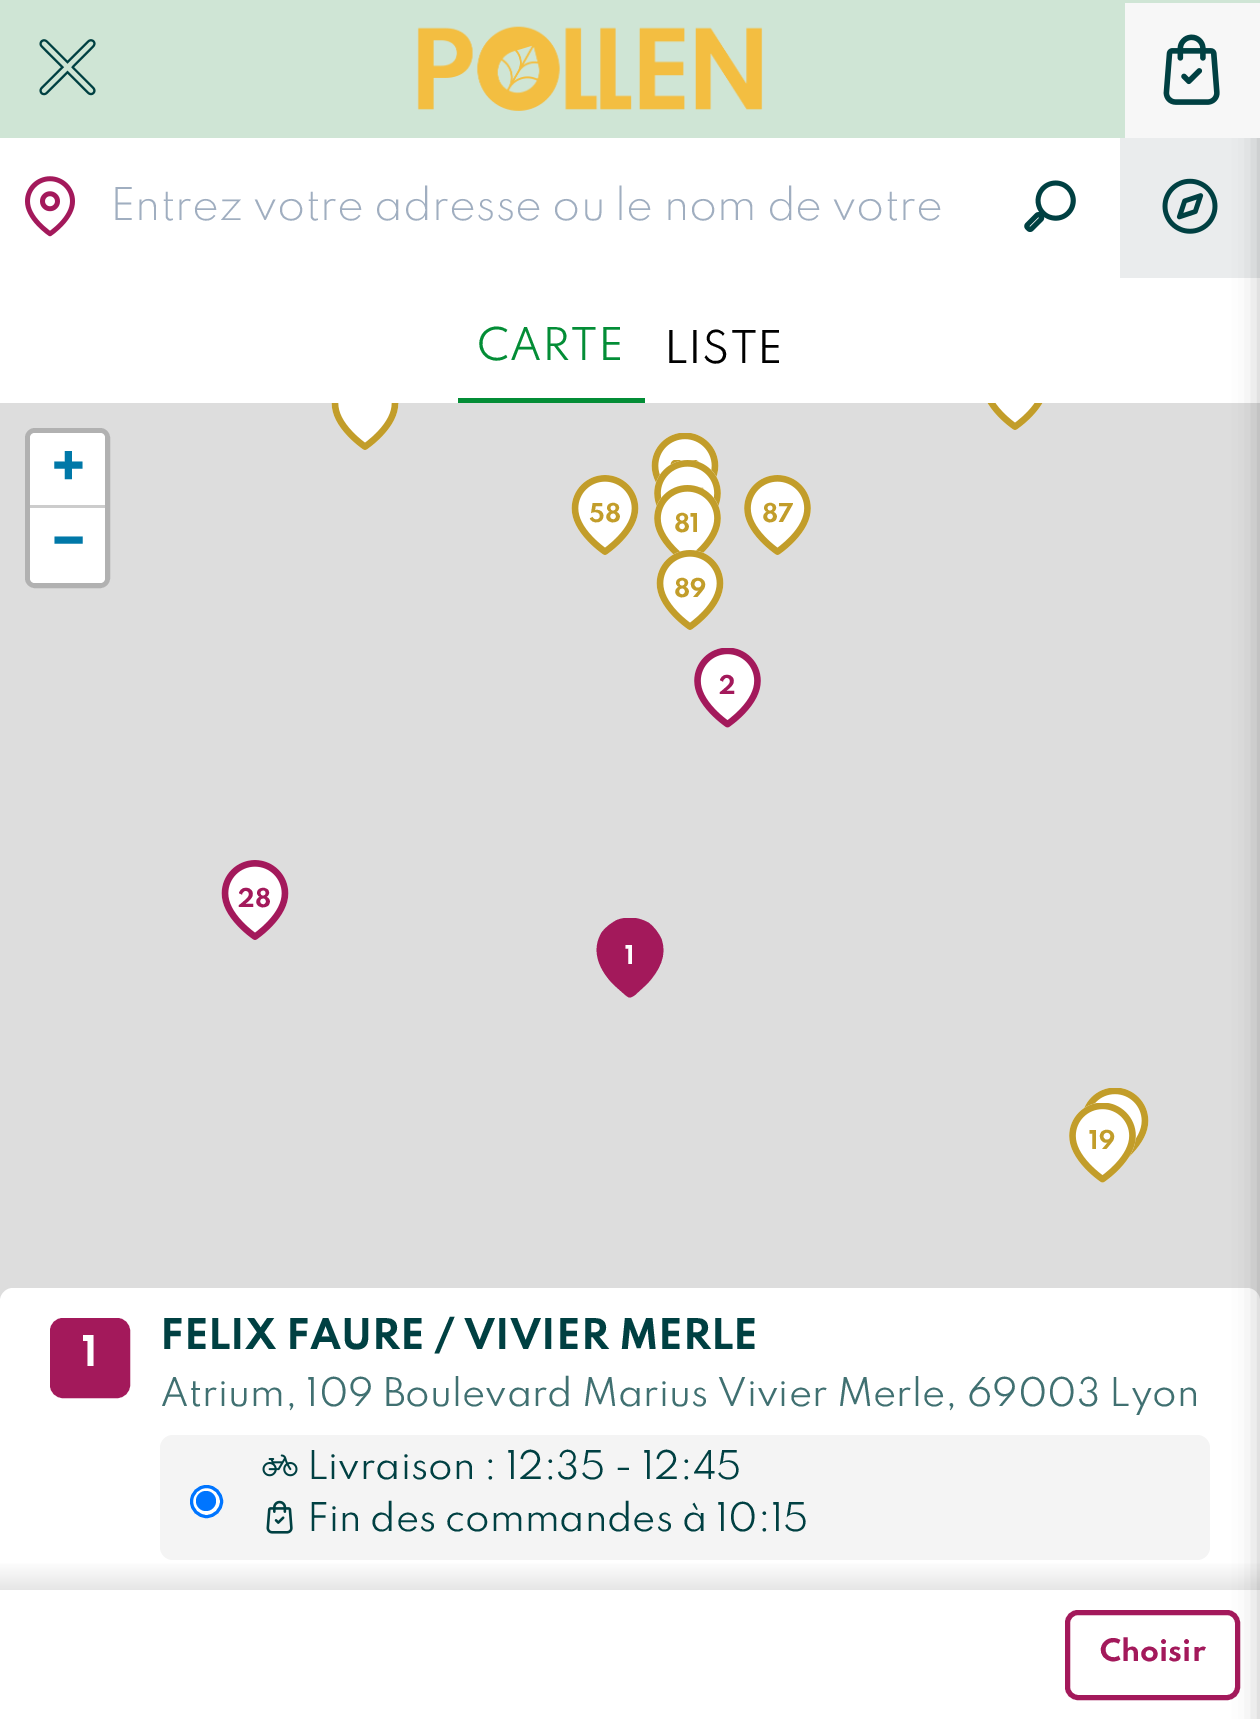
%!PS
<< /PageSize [1260 1719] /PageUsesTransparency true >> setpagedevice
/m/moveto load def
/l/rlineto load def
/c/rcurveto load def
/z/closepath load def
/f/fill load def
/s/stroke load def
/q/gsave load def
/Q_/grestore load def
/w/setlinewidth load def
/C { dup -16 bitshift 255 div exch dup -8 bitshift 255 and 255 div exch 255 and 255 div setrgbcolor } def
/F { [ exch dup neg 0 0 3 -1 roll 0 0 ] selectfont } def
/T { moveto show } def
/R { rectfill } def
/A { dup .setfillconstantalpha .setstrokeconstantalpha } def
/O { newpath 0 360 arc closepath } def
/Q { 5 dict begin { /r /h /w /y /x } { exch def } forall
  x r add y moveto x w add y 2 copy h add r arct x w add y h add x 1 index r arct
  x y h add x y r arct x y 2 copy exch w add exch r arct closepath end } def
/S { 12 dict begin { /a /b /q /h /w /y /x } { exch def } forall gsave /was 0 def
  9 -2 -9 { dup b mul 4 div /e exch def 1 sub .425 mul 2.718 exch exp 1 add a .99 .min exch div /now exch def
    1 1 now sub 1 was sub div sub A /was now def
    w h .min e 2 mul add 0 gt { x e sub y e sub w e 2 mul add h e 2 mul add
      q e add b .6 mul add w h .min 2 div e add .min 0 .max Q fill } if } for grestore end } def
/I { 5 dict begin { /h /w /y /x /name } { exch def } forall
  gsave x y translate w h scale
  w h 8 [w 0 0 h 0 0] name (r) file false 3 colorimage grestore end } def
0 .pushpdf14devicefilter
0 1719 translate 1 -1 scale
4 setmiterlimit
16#FFFFFF C
0 0 1260 1719 R
16#EAECED C
1120 138 140 140 R
16#DDDDDD C
0 403 1260 898 R
16#FFFFFF C
13 1288 m 1234 0 l 7 0 13 6 13 13 c 0 289 l -1260 0 l 0 -289 l 0 -7 6 -13 13 -13 c z f
q 0 1563 m 1260 0 l 0 27 l -1260 0 l z clip newpath
<< /ShadingType 2 /ColorSpace /DeviceRGB /Coords [630 1590 630 1560] /Extend [true true] /Function << /FunctionType 2 /Domain [0 1] /C0 [.902 .902 .902] /C1 [1 1 1] /N 1 >> >> shfill Q_
16#A3195B C
5 w
1067.5 1612.5 170 85 10.5 Q s
16#000000 C
1260 125 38 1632 0 12.5 .24 S
16#CFE5D5 C
0 0 1260 138 R
(1.rgb) 39 39 57 57 I
(2.rgb) 417 26 346 85 I
16#F7F7F7 C
1125 3 135 135 R
(3.rgb) 1163 34 57 71 I
(4.rgb) 25 176 50 61 I
/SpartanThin-Light 40 F
16#A0AEC0 C
(Entrez votre adresse ou le nom de votre) 110 220 T
(5.rgb) 1024 180 52 52 I
(6.rgb) 1162 178 56 56 I
16#038D36 C
458 398 187 5 R
/SpartanThin-Regular 40 F
(CARTE) 477 360 T
16#000000 C
(LISTE) 664 363 T
16#B1B1B1 C
27.5 430.5 80 155 7.5 Q s
16#FFFFFF C
35 433 m 65 0 l 3 0 5 2 5 5 c 0 67 l -75 0 l 0 -67 l 0 -3 2 -5 5 -5 c z f
16#CCCCCC C
30 505 75 3 R
/SpartanThin-Bold 55 F
16#0078A8 C
(+) 50 488 T
16#FFFFFF C
30 508 m 75 0 l 0 70 l 0 3 -2 5 -5 5 c -65 0 l -3 0 -5 -2 -5 -5 c z f
16#0078A8 C
(−) 47 563 T
(8.rgb) 398 403 1 2 I
(7.rgb) 331 403 68 47 I
(9.rgb) 987 403 56 27 I
(10.rgb) 651 433 68 50 I
(11.rgb) 654 460 67 47 I
(12.rgb) 571 475 68 80 I
/SpartanThin-Bold 23 F
16#C29D2A C
(58) 589 522 T
(13.rgb) 654 485 67 70 I
(81) 674 532 T
(14.rgb) 744 475 67 80 I
(87) 762 522 T
(15.rgb) 656 550 68 80 I
(89) 674 597 T
(16.rgb) 694 648 67 80 I
16#A3195B C
(2) 719 694 T
(17.rgb) 221 860 68 80 I
(28) 238 907 T
q
590 918 80 80 rectclip
647 984 m -12 11 l -6 4 -6 3 -12 -2 c -9 -8 l -14 -14 -24 -34 -12 -53 c 4 -5 9 -9 15 -12 c 10 -4 22 -3 32 3 c 5 4 9 9 12 15 c 7 17 -2 33 -14 46 c z eofill
Q_
16#FFFFFF C
(1) 625 964 T
(18.rgb) 1083 1088 66 71 I
(19.rgb) 1069 1103 67 80 I
16#C29D2A C
(19) 1089 1149 T
16#A3195B C
52.5 1320.5 75 75 10.5 Q q f Q_
s
/SpartanThin-Bold 37.5 F
16#FFFFFF C
(1) 82 1366 T
16#004042 C
(FELIX FAURE / VIVIER MERLE) 160 1349 T
/SpartanThin-Regular 35 F
16#407071 C
(Atrium, 109 Boulevard Marius Vivier Merle, 69003 Lyon) 160 1406 T
16#F4F4F4 C
160 1435 1050 125 13 Q f
16#FFFFFF C
206.5 1501.5 15 O q f Q_
16#0075FF C
3 w
s
206 1501 10 O f
(20.rgb) 262 1454 36 23 I
16#004042 C
(Livraison : 12:35 - 12:45) 307 1479 T
(21.rgb) 266 1500 27 34 I
(Fin des commandes à 10:15) 307 1531 T
/SpartanThin-Bold 27.5 F
16#A3195B C
(Choisir) 1100 1661 T
.poppdf14devicefilter showpage
